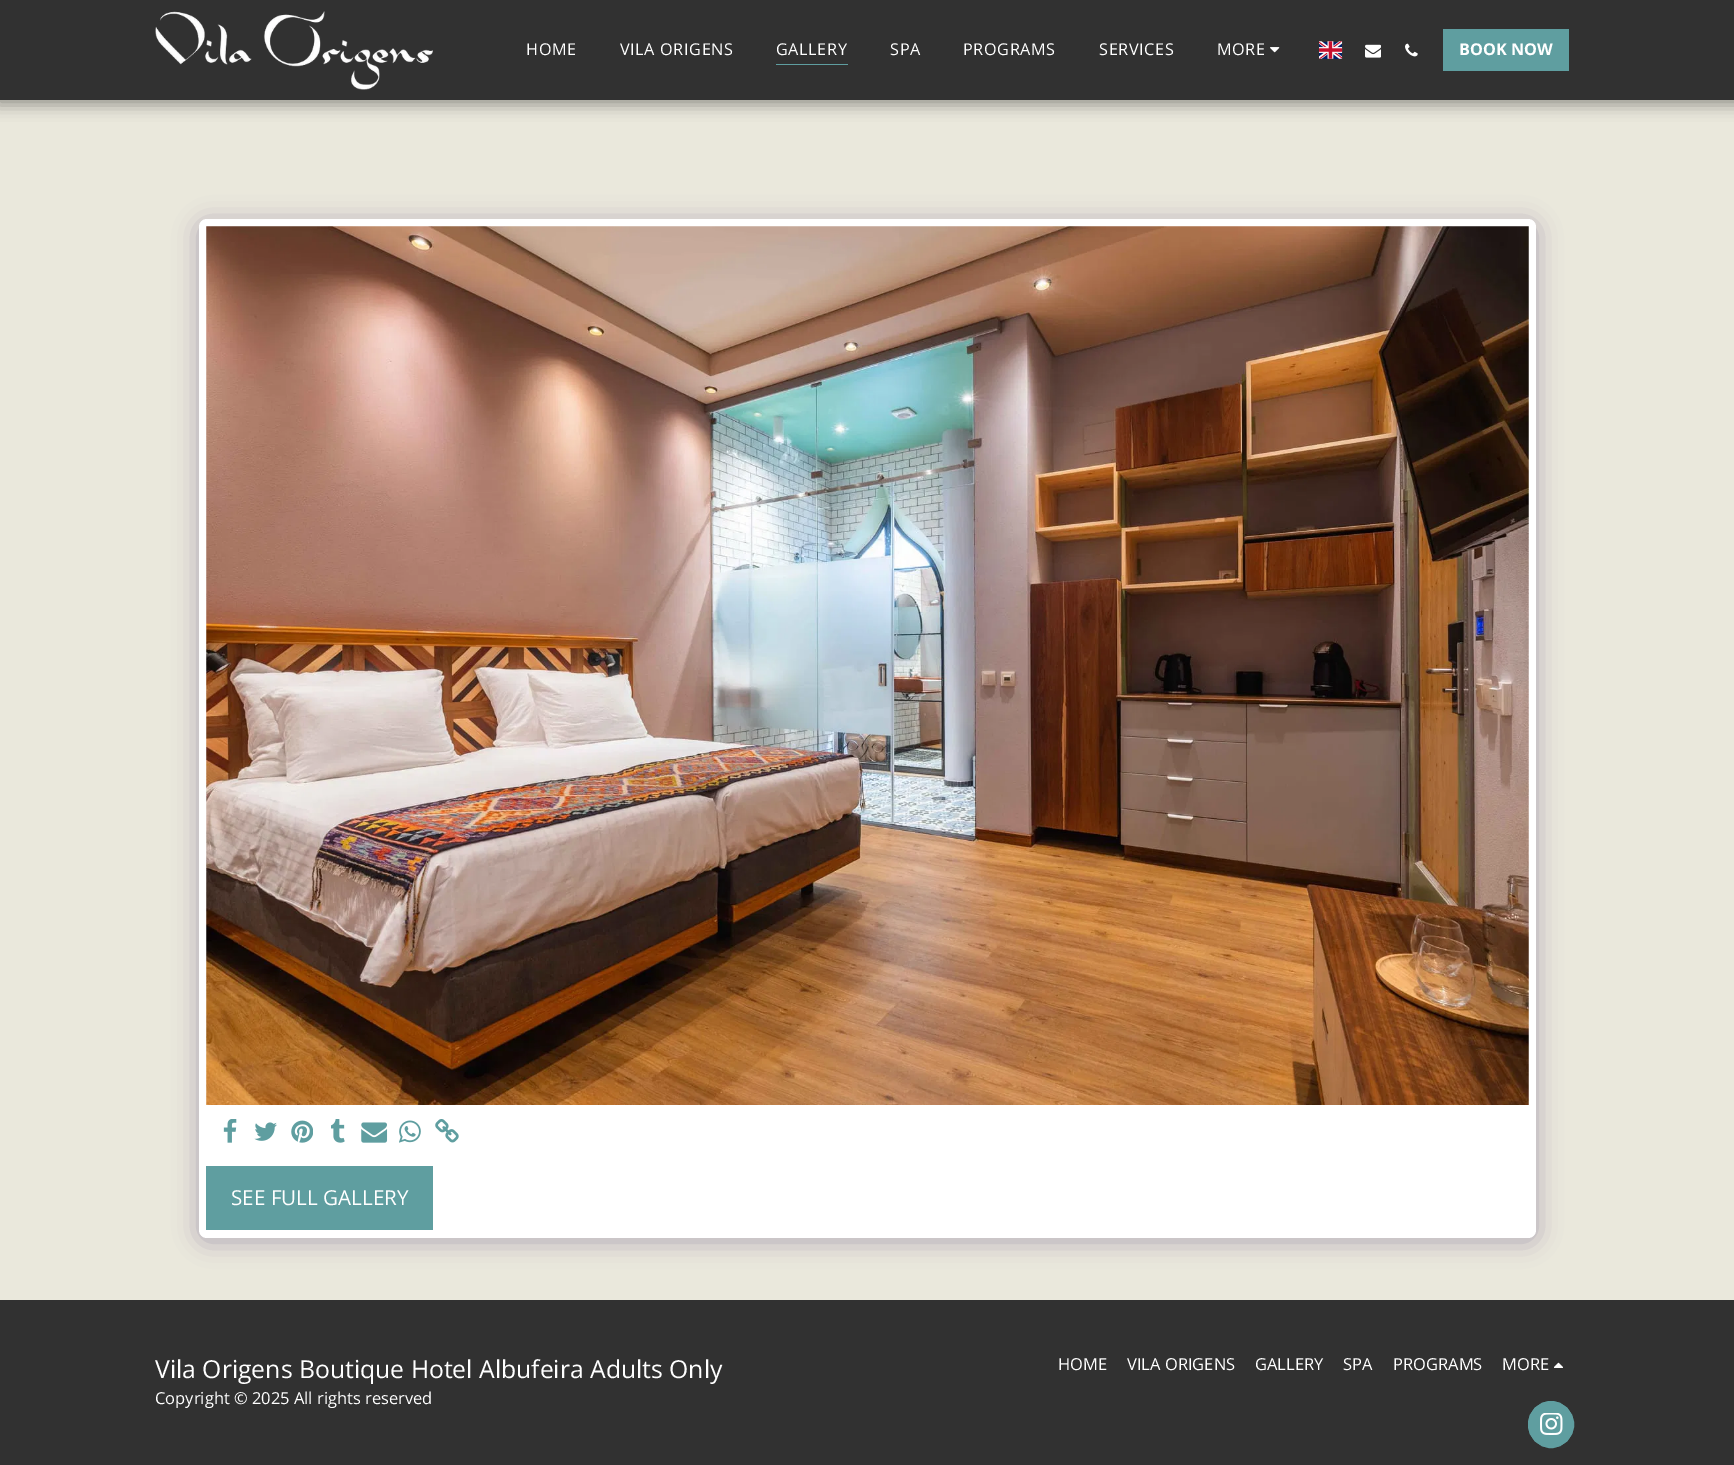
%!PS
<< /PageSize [1734 1465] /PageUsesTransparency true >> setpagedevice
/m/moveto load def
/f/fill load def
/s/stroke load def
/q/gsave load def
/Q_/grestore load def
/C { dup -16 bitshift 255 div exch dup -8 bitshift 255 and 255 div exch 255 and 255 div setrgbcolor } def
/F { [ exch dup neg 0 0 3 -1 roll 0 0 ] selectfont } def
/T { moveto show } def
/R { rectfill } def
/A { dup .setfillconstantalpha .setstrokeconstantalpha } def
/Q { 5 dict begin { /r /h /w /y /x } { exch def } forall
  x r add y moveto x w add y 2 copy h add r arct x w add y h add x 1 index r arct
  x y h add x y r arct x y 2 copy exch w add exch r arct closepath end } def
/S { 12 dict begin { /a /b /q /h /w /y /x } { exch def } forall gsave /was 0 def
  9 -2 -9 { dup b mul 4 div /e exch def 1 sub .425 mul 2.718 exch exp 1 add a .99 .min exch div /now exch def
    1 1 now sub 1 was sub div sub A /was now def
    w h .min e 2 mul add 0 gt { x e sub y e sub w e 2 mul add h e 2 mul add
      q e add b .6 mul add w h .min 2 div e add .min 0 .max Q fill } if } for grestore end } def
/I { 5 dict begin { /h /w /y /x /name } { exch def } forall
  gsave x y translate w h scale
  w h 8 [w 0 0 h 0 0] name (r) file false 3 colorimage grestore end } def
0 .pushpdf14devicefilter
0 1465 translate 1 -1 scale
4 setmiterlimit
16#EAE8DC C
0 0 1734 1465 R
16#000000 C
-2 0 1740 105 0 7.5 .35 S
16#313131 C
0 0 1734 100 R
(1.rgb) 155 11 278 79 I
/OpenSans-Regular 16.25 F
16#FFFFFF C
526 55 m .6 0 (HOME) ashow
620 55 m .6 0 (VILA ORIGENS) ashow
776 55 m .6 0 (GALLERY) ashow
16#5F9EA0 C
776 64 72 1 R
16#FFFFFF C
890 55 m .6 0 (SPA) ashow
963 55 m .6 0 (PROGRAMS) ashow
1099 55 m .6 0 (SERVICES) ashow
1217 55 m .6 0 (MORE) ashow
(2.rgb) 1270 47 10 6 I
(3.rgb) 1319 41 24 18 I
(4.rgb) 1365 44 16 14 I
(5.rgb) 1405 43 13 14 I
16#5F9EA0 C
1443 29 126 42 R
/OpenSans-Bold 16.25 F
16#FFFFFF C
(BOOK NOW) 1459 55 T
16#4D3F7A C
199 223 1337 1018 8 12.5 .4 S
16#FFFFFF C
199 219 1337 1019 8 Q f
(6.rgb) 206 226 1323 879 I
(7.rgb) 223 1119 14 24 I
(8.rgb) 254 1122 23 19 I
(9.rgb) 291 1120 22 23 I
(10.rgb) 331 1119 14 24 I
(11.rgb) 361 1122 27 21 I
(12.rgb) 399 1120 22 23 I
(13.rgb) 435 1119 24 24 I
16#5F9EA0 C
206 1166 227 64 R
/OpenSans-Regular 20.6 F
16#FFFFFF C
(SEE FULL GALLERY) 231 1205 T
16#313131 C
0 1300 1734 165 R
/OpenSans-Regular 24.75 F
16#FFFFFF C
(Vila Origens Boutique Hotel Albufeira Adults Only) 155 1378 T
/OpenSans-Regular 16.5 F
(Copyright © 2025 All rights reserved) 155 1404 T
(HOME) 1058 1370 T
(VILA ORIGENS) 1127 1370 T
(GALLERY) 1255 1370 T
(SPA) 1343 1370 T
(PROGRAMS) 1393 1370 T
(MORE) 1502 1370 T
(14.rgb) 1554 1362 9 6 I
16#5F9EA0 C
1528.5 1401.5 45 46 22.5 Q q f Q_
s
(15.rgb) 1540 1413 23 22 I
.poppdf14devicefilter showpage
